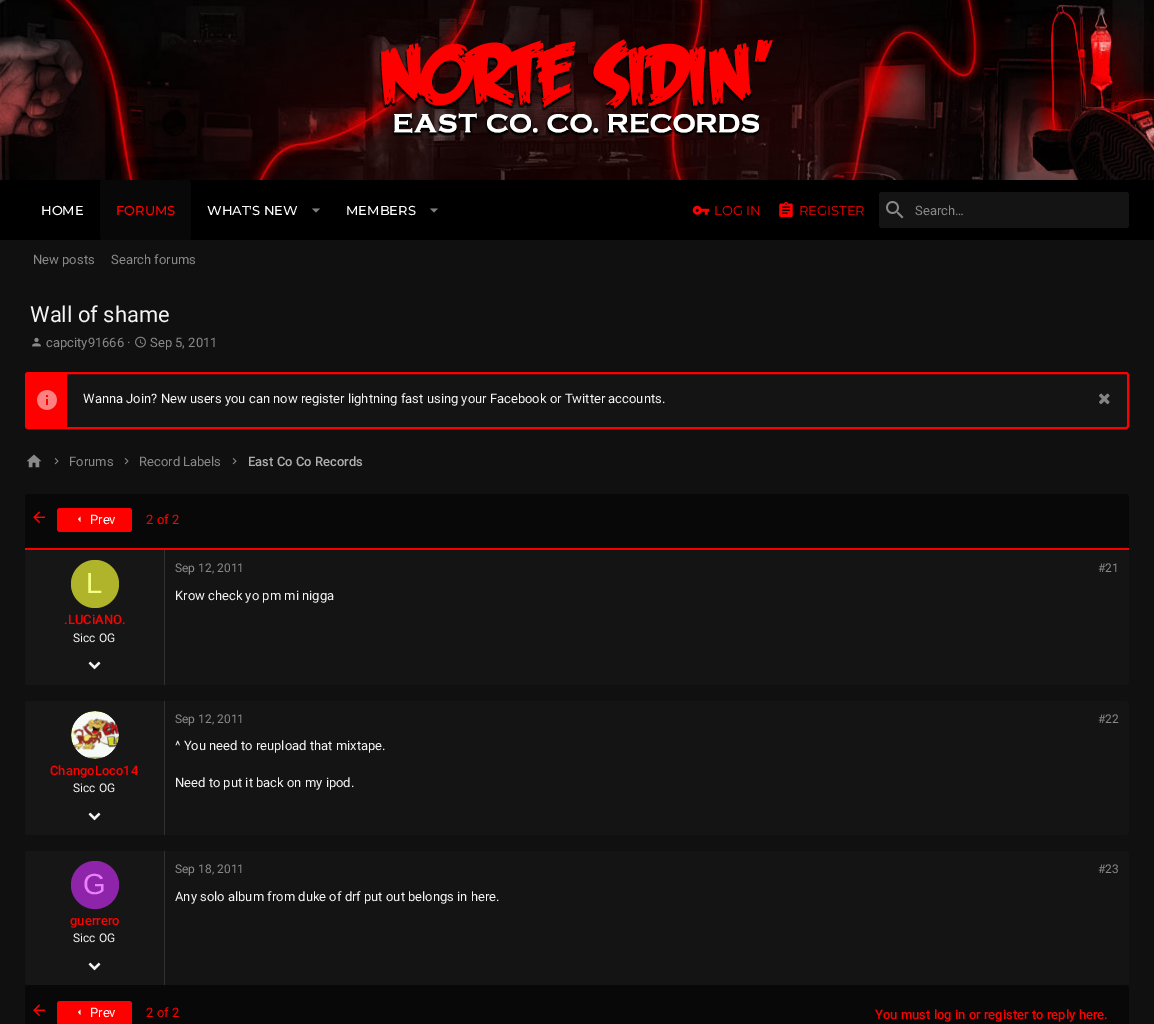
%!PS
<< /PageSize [1154 1024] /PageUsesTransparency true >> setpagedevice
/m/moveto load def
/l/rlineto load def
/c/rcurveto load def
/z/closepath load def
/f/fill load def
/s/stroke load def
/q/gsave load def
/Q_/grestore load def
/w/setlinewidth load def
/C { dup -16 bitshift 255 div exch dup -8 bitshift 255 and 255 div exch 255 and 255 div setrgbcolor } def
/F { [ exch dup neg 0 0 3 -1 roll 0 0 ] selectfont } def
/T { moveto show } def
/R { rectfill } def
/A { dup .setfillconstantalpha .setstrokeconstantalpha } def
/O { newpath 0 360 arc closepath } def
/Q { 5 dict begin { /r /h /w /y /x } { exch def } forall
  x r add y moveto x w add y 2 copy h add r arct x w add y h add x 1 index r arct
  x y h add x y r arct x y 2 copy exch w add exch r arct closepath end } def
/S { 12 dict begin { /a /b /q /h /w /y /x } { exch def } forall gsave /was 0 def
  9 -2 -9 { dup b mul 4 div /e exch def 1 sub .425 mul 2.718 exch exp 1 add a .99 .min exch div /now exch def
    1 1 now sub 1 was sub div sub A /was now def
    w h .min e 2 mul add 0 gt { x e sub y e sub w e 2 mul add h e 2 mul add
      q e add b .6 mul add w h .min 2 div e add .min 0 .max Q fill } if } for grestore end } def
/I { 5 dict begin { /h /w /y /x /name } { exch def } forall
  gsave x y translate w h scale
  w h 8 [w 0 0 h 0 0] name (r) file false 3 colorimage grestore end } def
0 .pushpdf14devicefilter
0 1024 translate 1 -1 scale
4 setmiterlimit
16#101010 C
0 0 1154 1024 R
(1.rgb) 0 0 1154 180 I
(2.rgb) 379 39 395 98 I
16#000000 C
0 180 1154 60 R
/Montserrat-Medium 13 F
16#FFFFFF C
(HOME) 41 215 T
16#080808 C
100 180 91 60 3 Q f
16#FF0000 C
(FORUMS) 116 215 T
16#FFFFFF C
(WHAT'S NEW) 207 215 T
16#808080 C
312 208.5 m 4 4 l 4 -4 l z f
16#FFFFFF C
(MEMBERS) 346 215 T
16#808080 C
430 208.5 m 4 4 l 4 -4 l z f
(3.rgb) 692 205 18 10 I
/Montserrat-Regular 13 F
16#FF0000 C
(LOG IN) 714 215 T
(4.rgb) 779 202 14 15 I
(REGISTER) 799 215 T
16#141414 C
879 192 250 36 3 Q f
(5.rgb) 886 201 18 18 I
/Roboto-Regular 13 F
16#898989 C
(Search…) 915 215 T
(New posts) 33 264 T
(Search forums) 111 264 T
/Roboto-Regular 22 F
16#F4F4F4 C
(Wall of shame) 30 322 T
(6.rgb) 32 337 9 10 I
/Roboto-Regular 13 F
16#898989 C
(capcity91666 ·) 46 347 T
(7.rgb) 135 336 11 12 I
(Sep 5, 2011) 150 347 T
16#141414 C
26 373 1102 55 2 Q q f Q_
16#FF0000 C
2 w
s
27 374 40 53 R
(8.rgb) 37 390 20 20 I
16#F4F4F4 C
(Wanna Join? New users you can now register lightning fast using your Facebook or Twitter accounts.) 83 403 T
(9.rgb) 1099 393 11 12 I
(10.rgb) 26 454 16 14 I
(11.rgb) 54 458 5 7 I
16#898989 C
(Forums) 69 466 T
(11.rgb) 124 458 5 7 I
(Record Labels) 139 466 T
(11.rgb) 232 458 5 7 I
/Roboto-Medium 13 F
16#AFAFAF C
(East Co Co Records) 248 466 T
16#080808 C
28 494 m 1098 0 l 1.5 0 3 1.5 3 3 c 0 53 l -1104 0 l 0 -53 l 0 -1.5 1.5 -3 3 -3 c z f
16#FF0000 C
25 548 1104 2 R
(12.rgb) 33 511 12 13 I
57 508 75 24 3 Q f
16#FFFFFF C
80.5 516.5 m -2.5 2.5 l 2.5 3 l z f
/Roboto-Regular 13 F
(Prev) 90 524 T
16#FF0000 C
(2 of 2) 146 524 T
16#000000 C
25 550 1104 135 3 1 .14 S
16#141414 C
25 550 1104 135 3 Q f
16#161616 C
27 550 m 138 0 l 0 135 l -138 0 l -1 0 -2 -1 -2 -2 c 0 -131 l 0 -1 1 -2 2 -2 c z f
16#323232 C
164 550 1 135 R
16#AFB42B C
95 584 24 O f
/LiberationSans-Regular 29 F
16#F4FF81 C
(L) 86 593 T
/Roboto-Medium 13 F
16#FF0000 C
(.LUCiANO.) 64 624 T
/Roboto-Regular 12 F
16#F4F4F4 C
(Sicc OG) 73 642 T
(13.rgb) 88 661 13 9 I
16#898989 C
(Sep 12, 2011) 175 572 T
(#21) 1098 572 T
/Roboto-Regular 13 F
16#F4F4F4 C
(Krow check yo pm mi nigga) 175 600 T
16#141414 C
25 701 1104 134 3 Q f
16#161616 C
27 701 m 138 0 l 0 134 l -138 0 l -1 0 -2 -1 -2 -2 c 0 -130 l 0 -1 1 -2 2 -2 c z f
16#323232 C
164 701 1 134 R
(14.rgb) 71 711 48 48 I
/Roboto-Medium 13 F
16#FF0000 C
(ChangoLoco14) 50 775 T
/Roboto-Regular 12 F
16#F4F4F4 C
(Sicc OG) 73 792 T
(13.rgb) 88 812 13 9 I
16#898989 C
(Sep 12, 2011) 175 723 T
(#22) 1098 723 T
/Roboto-Regular 13 F
16#F4F4F4 C
(^ You need to reupload that mixtape.) 175 750 T
(Need to put it back on my ipod.) 175 787 T
16#141414 C
25 851 1104 134 3 Q f
16#161616 C
27 851 m 138 0 l 0 134 l -138 0 l -1 0 -2 -1 -2 -2 c 0 -130 l 0 -1 1 -2 2 -2 c z f
16#323232 C
164 851 1 134 R
16#8E24AA C
95 885 24 O f
/LiberationSans-Regular 29 F
16#EA80FC C
(G) 83 894 T
/Roboto-Medium 13 F
16#FF0000 C
(guerrero) 70 925 T
/Roboto-Regular 12 F
16#F4F4F4 C
(Sicc OG) 73 942 T
(13.rgb) 88 962 13 9 I
16#898989 C
(Sep 18, 2011) 175 873 T
(#23) 1098 873 T
/Roboto-Regular 13 F
16#F4F4F4 C
(Any solo album from duke of drf put out belongs in here.) 175 901 T
16#080808 C
28 985 m 1098 0 l 1.5 0 3 1.5 3 3 c 0 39 l -1104 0 l 0 -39 l 0 -1.5 1.5 -3 3 -3 c z f
(12.rgb) 33 1004 12 13 I
16#FF0000 C
57 1001 75 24 3 Q f
16#FFFFFF C
80.5 1009.5 m -2.5 2.5 l 2.5 3 l z f
(Prev) 90 1017 T
16#FF0000 C
(2 of 2) 146 1017 T
/Roboto-Medium 13 F
(You must log in or register to reply here.) 875 1019 T
.poppdf14devicefilter showpage
